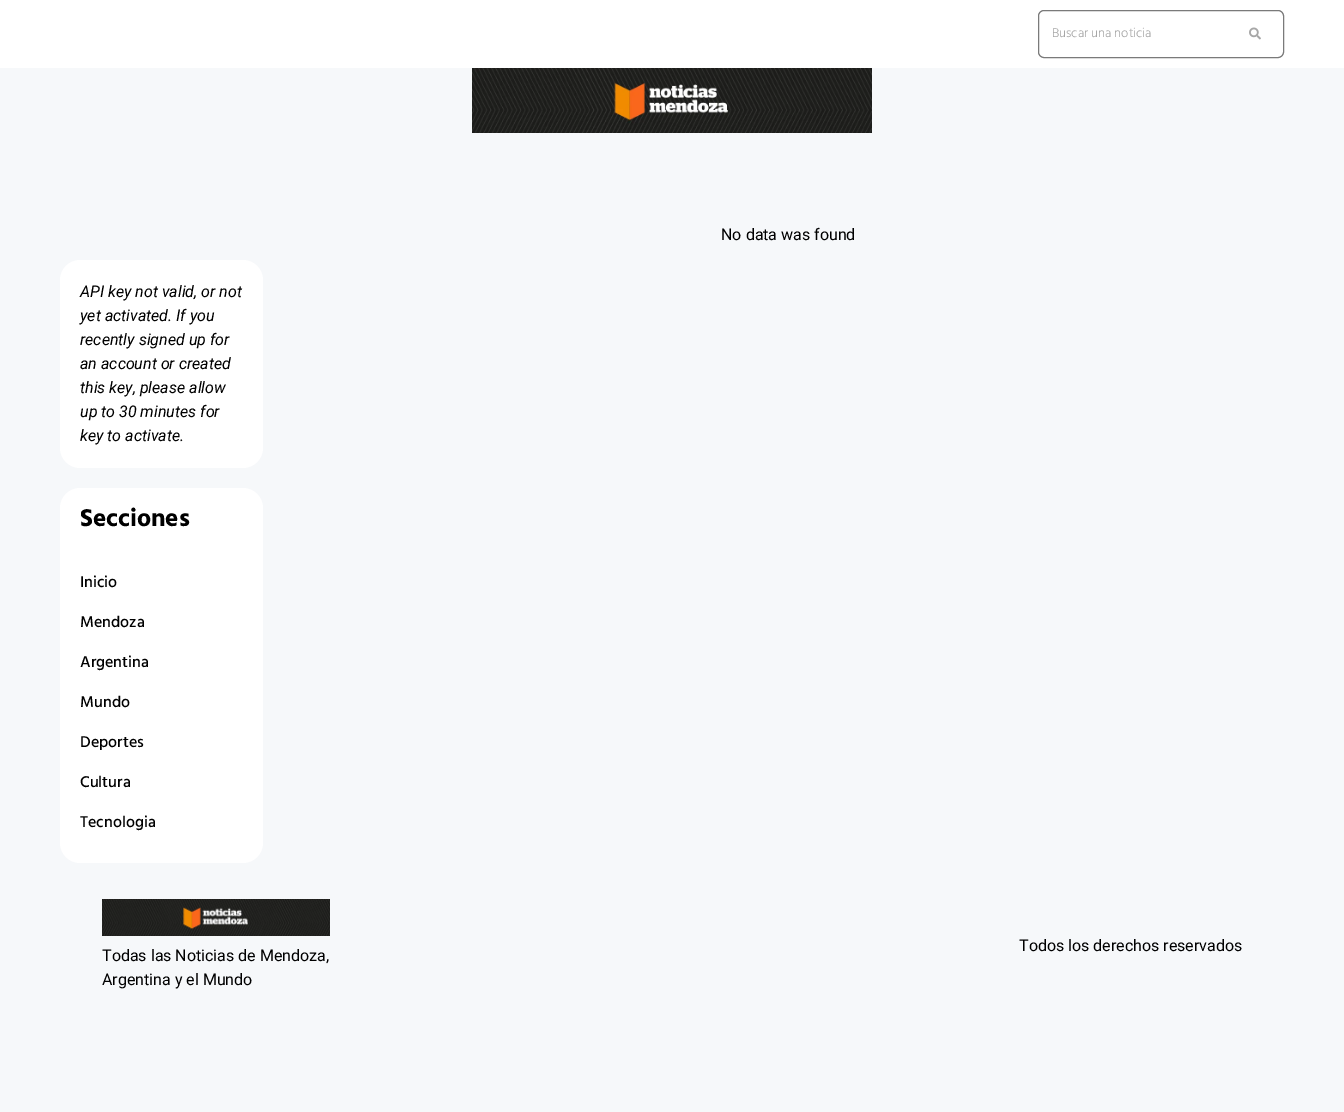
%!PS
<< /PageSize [1344 1112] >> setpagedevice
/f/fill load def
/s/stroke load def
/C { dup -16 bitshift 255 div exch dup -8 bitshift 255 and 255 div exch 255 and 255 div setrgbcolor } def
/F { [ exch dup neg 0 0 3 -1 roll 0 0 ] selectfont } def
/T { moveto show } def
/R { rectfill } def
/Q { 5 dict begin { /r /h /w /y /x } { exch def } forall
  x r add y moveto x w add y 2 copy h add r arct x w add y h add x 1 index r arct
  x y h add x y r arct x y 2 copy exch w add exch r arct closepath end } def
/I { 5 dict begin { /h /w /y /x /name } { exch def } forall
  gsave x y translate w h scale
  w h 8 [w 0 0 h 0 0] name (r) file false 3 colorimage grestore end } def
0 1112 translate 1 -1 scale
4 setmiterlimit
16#F6F8FA C
0 0 1344 1112 R
16#FFFFFF C
0 0 1344 68 R
16#7A7A7A C
1038.5 10.5 245 47 5.5 Q s
/Hind-Light 13 F
16#A7A7A7 C
(Buscar una noticia) 1052 37 T
(1.rgb) 1249 27 12 13 I
(2.rgb) 472 68 400 65 I
/Roboto-Regular 16 F
16#000000 C
(No data was found) 721 240 T
16#FFFFFF C
60 260 203 208 20 Q f
/Roboto-Italic 16 F
16#000000 C
(API key not valid, or not) 80 297 T
(yet activated. If you) 80 321 T
(recently signed up for) 80 345 T
(an account or created) 80 369 T
(this key, please allow) 80 393 T
(up to 30 minutes for) 80 417 T
(key to activate.) 80 441 T
16#FFFFFF C
60 488 203 375 20 Q f
/Hind-Bold 25 F
16#000000 C
(Secciones) 80 526 T
/Hind-Medium 16 F
(Inicio) 80 587 T
(Mendoza) 80 627 T
(Argentina) 80 667 T
(Mundo) 80 707 T
(Deportes) 80 747 T
(Cultura) 80 787 T
(Tecnologia) 80 827 T
/Roboto-Regular 16 F
(Todos los derechos reservados) 1019 951 T
(3.rgb) 102 899 228 37 I
(Todas las Noticias de Mendoza,) 102 961 T
(Argentina y el Mundo) 102 985 T
showpage
